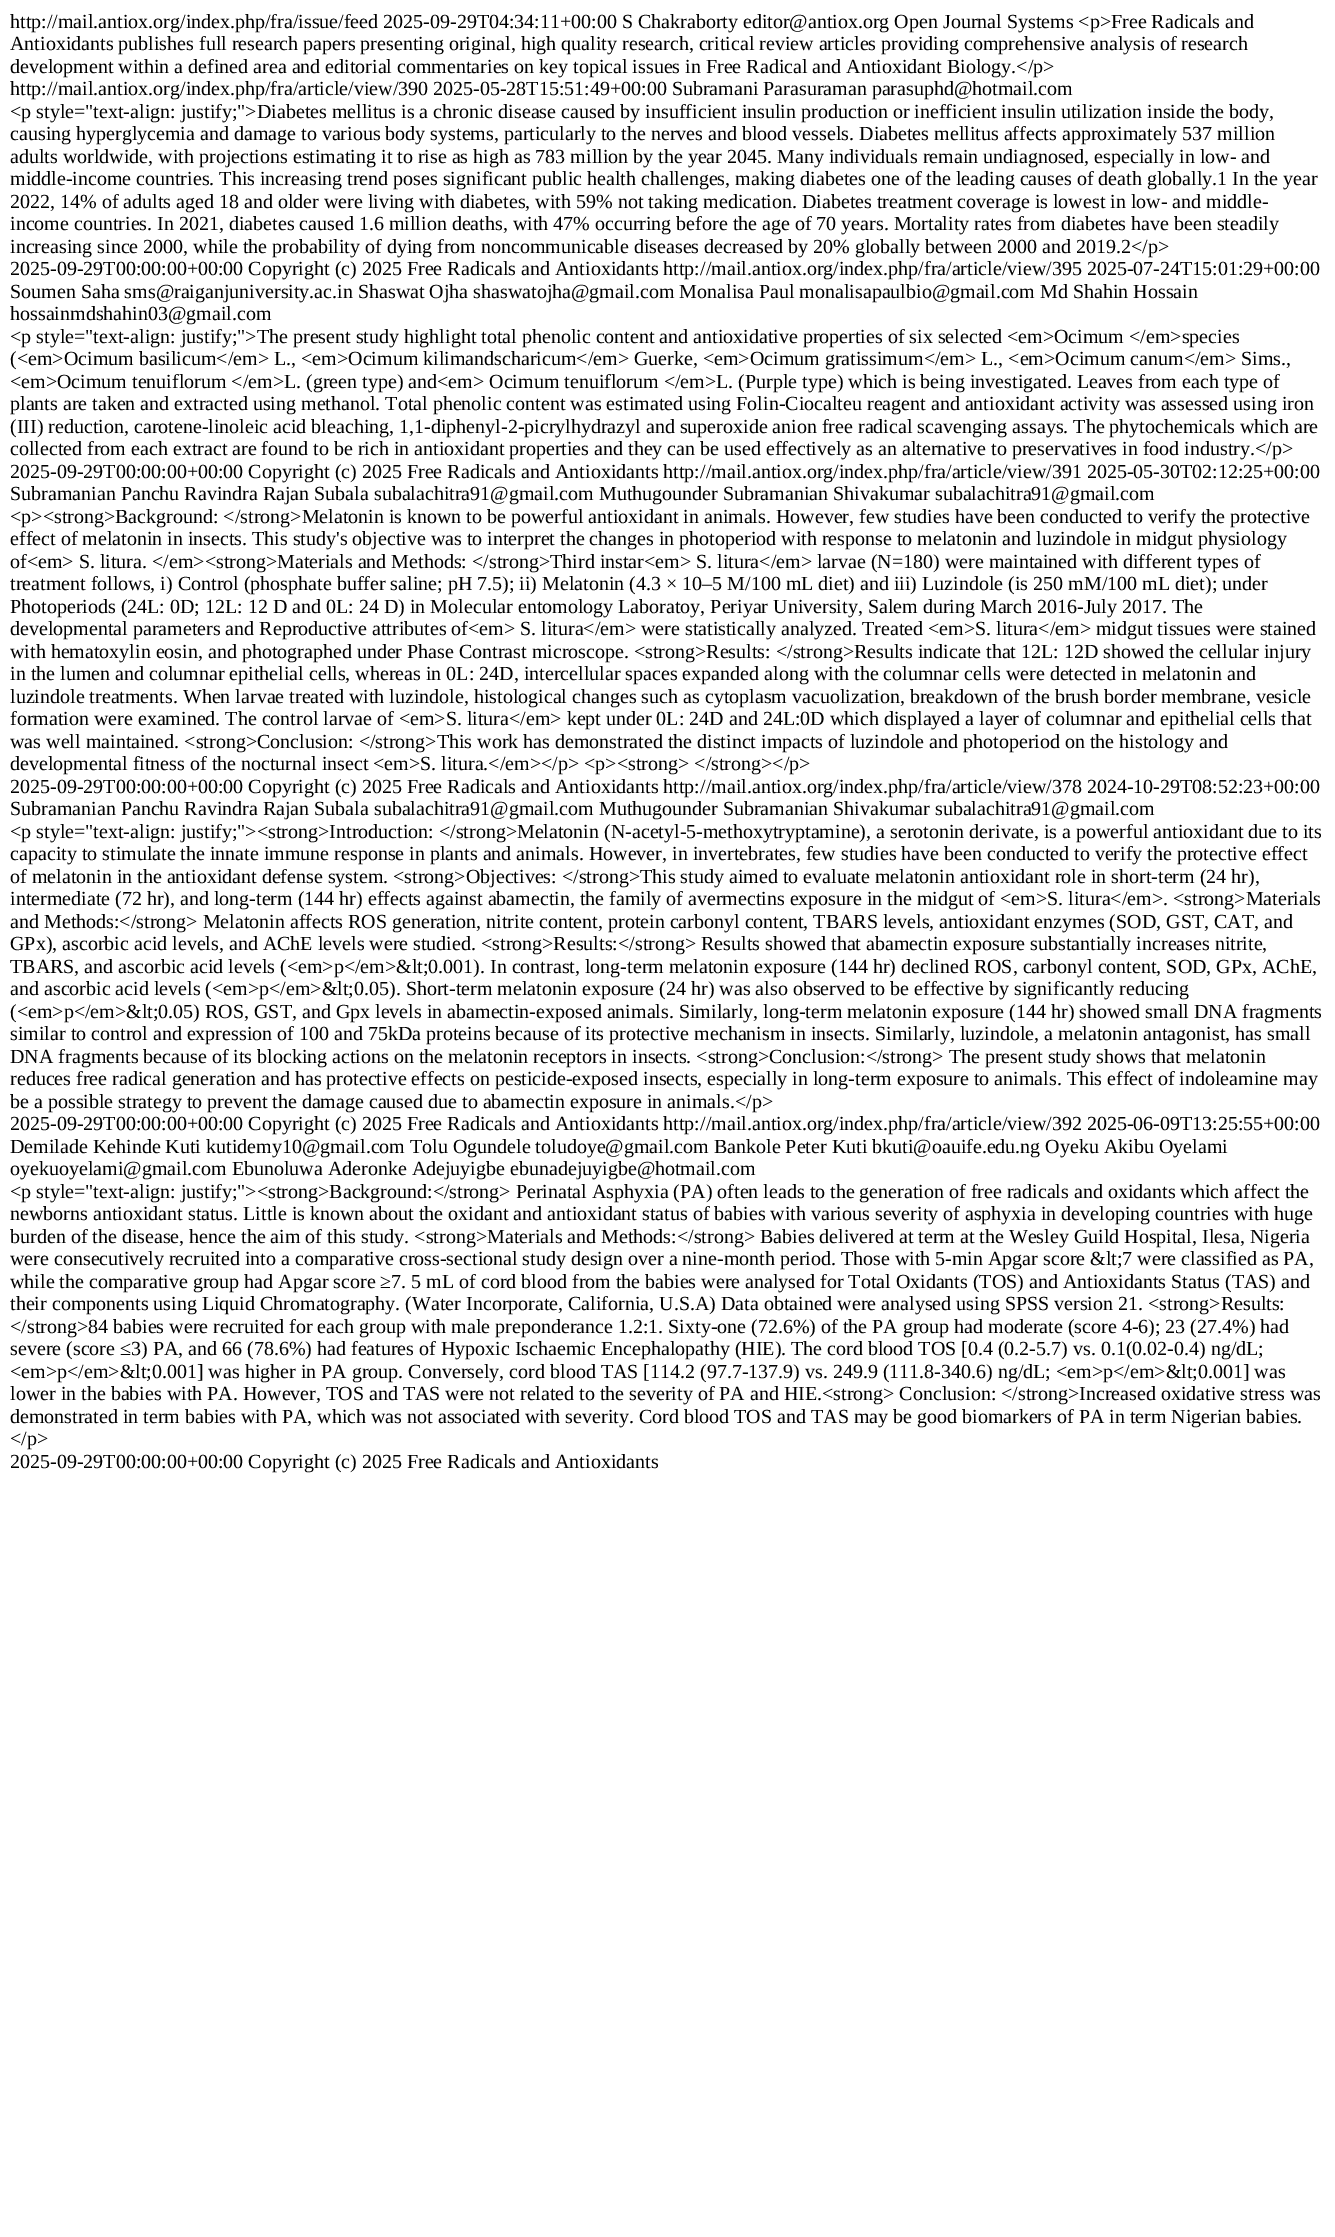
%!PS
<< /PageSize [1335 2237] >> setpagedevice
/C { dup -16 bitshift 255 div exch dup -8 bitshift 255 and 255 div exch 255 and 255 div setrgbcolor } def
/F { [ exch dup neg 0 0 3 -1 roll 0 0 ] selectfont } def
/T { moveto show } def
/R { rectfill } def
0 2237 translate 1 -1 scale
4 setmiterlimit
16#FFFFFF C
0 0 1335 2237 R
/LiberationSerif-Regular 20 F
16#000000 C
(http://mail.antiox.org/index.php/fra/issue/feed 2025-09-29T04:34:11+00:00 S Chakraborty editor@antiox.org Open Journal Systems <p>Free Radicals and) 10 28 T
(Antioxidants publishes full research papers presenting original, high quality research, critical review articles providing comprehensive analysis of research) 10 50 T
(development within a defined area and editorial commentaries on key topical issues in Free Radical and Antioxidant Biology.</p>) 10 73 T
(http://mail.antiox.org/index.php/fra/article/view/390 2025-05-28T15:51:49+00:00 Subramani Parasuraman parasuphd@hotmail.com) 10 95 T
(<p style="text-align: justify;">Diabetes mellitus is a chronic disease caused by insufficient insulin production or inefficient insulin utilization inside the body,) 10 118 T
(causing hyperglycemia and damage to various body systems, particularly to the nerves and blood vessels. Diabetes mellitus affects approximately 537 million) 10 140 T
(adults worldwide, with projections estimating it to rise as high as 783 million by the year 2045. Many individuals remain undiagnosed, especially in low- and) 10 163 T
(middle-income countries. This increasing trend poses significant public health challenges, making diabetes one of the leading causes of death globally.1 In the year) 10 185 T
(2022, 14% of adults aged 18 and older were living with diabetes, with 59% not taking medication. Diabetes treatment coverage is lowest in low- and middle-) 10 208 T
(income countries. In 2021, diabetes caused 1.6 million deaths, with 47% occurring before the age of 70 years. Mortality rates from diabetes have been steadily) 10 230 T
(increasing since 2000, while the probability of dying from noncommunicable diseases decreased by 20% globally between 2000 and 2019.2</p>) 10 253 T
(2025-09-29T00:00:00+00:00 Copyright \(c\) 2025 Free Radicals and Antioxidants http://mail.antiox.org/index.php/fra/article/view/395 2025-07-24T15:01:29+00:00) 10 275 T
(Soumen Saha sms@raiganjuniversity.ac.in Shaswat Ojha shaswatojha@gmail.com Monalisa Paul monalisapaulbio@gmail.com Md Shahin Hossain) 10 298 T
(hossainmdshahin03@gmail.com) 10 320 T
(<p style="text-align: justify;">The present study highlight total phenolic content and antioxidative properties of six selected <em>Ocimum </em>species) 10 343 T
(\(<em>Ocimum basilicum</em> L., <em>Ocimum kilimandscharicum</em> Guerke, <em>Ocimum gratissimum</em> L., <em>Ocimum canum</em> Sims.,) 10 365 T
(<em>Ocimum tenuiflorum </em>L. \(green type\) and<em> Ocimum tenuiflorum </em>L. \(Purple type\) which is being investigated. Leaves from each type of) 10 388 T
(plants are taken and extracted using methanol. Total phenolic content was estimated using Folin-Ciocalteu reagent and antioxidant activity was assessed using iron) 10 410 T
(\(III\) reduction, carotene-linoleic acid bleaching, 1,1-diphenyl-2-picrylhydrazyl and superoxide anion free radical scavenging assays. The phytochemicals which are) 10 433 T
(collected from each extract are found to be rich in antioxidant properties and they can be used effectively as an alternative to preservatives in food industry.</p>) 10 455 T
(2025-09-29T00:00:00+00:00 Copyright \(c\) 2025 Free Radicals and Antioxidants http://mail.antiox.org/index.php/fra/article/view/391 2025-05-30T02:12:25+00:00) 10 478 T
(Subramanian Panchu Ravindra Rajan Subala subalachitra91@gmail.com Muthugounder Subramanian Shivakumar subalachitra91@gmail.com) 10 500 T
(<p><strong>Background: </strong>Melatonin is known to be powerful antioxidant in animals. However, few studies have been conducted to verify the protective) 10 523 T
(effect of melatonin in insects. This study's objective was to interpret the changes in photoperiod with response to melatonin and luzindole in midgut physiology) 10 545 T
(of<em> S. litura. </em><strong>Materials and Methods: </strong>Third instar<em> S. litura</em> larvae \(N=180\) were maintained with different types of) 10 568 T
(treatment follows, i\) Control \(phosphate buffer saline; pH 7.5\); ii\) Melatonin \(4.3 × 10–5 M/100 mL diet\) and iii\) Luzindole \(is 250 mM/100 mL diet\); under) 10 590 T
(Photoperiods \(24L: 0D; 12L: 12 D and 0L: 24 D\) in Molecular entomology Laboratoy, Periyar University, Salem during March 2016-July 2017. The) 10 613 T
(developmental parameters and Reproductive attributes of<em> S. litura</em> were statistically analyzed. Treated <em>S. litura</em> midgut tissues were stained) 10 635 T
(with hematoxylin eosin, and photographed under Phase Contrast microscope. <strong>Results: </strong>Results indicate that 12L: 12D showed the cellular injury) 10 658 T
(in the lumen and columnar epithelial cells, whereas in 0L: 24D, intercellular spaces expanded along with the columnar cells were detected in melatonin and) 10 680 T
(luzindole treatments. When larvae treated with luzindole, histological changes such as cytoplasm vacuolization, breakdown of the brush border membrane, vesicle) 10 703 T
(formation were examined. The control larvae of <em>S. litura</em> kept under 0L: 24D and 24L:0D which displayed a layer of columnar and epithelial cells that) 10 725 T
(was well maintained. <strong>Conclusion: </strong>This work has demonstrated the distinct impacts of luzindole and photoperiod on the histology and) 10 748 T
(developmental fitness of the nocturnal insect <em>S. litura.</em></p> <p><strong> </strong></p>) 10 770 T
(2025-09-29T00:00:00+00:00 Copyright \(c\) 2025 Free Radicals and Antioxidants http://mail.antiox.org/index.php/fra/article/view/378 2024-10-29T08:52:23+00:00) 10 793 T
(Subramanian Panchu Ravindra Rajan Subala subalachitra91@gmail.com Muthugounder Subramanian Shivakumar subalachitra91@gmail.com) 10 815 T
(<p style="text-align: justify;"><strong>Introduction: </strong>Melatonin \(N-acetyl-5-methoxytryptamine\), a serotonin derivate, is a powerful antioxidant due to its) 10 838 T
(capacity to stimulate the innate immune response in plants and animals. However, in invertebrates, few studies have been conducted to verify the protective effect) 10 860 T
(of melatonin in the antioxidant defense system. <strong>Objectives: </strong>This study aimed to evaluate melatonin antioxidant role in short-term \(24 hr\),) 10 883 T
(intermediate \(72 hr\), and long-term \(144 hr\) effects against abamectin, the family of avermectins exposure in the midgut of <em>S. litura</em>. <strong>Materials) 10 905 T
(and Methods:</strong> Melatonin affects ROS generation, nitrite content, protein carbonyl content, TBARS levels, antioxidant enzymes \(SOD, GST, CAT, and) 10 928 T
(GPx\), ascorbic acid levels, and AChE levels were studied. <strong>Results:</strong> Results showed that abamectin exposure substantially increases nitrite,) 10 950 T
(TBARS, and ascorbic acid levels \(<em>p</em>&lt;0.001\). In contrast, long-term melatonin exposure \(144 hr\) declined ROS, carbonyl content, SOD, GPx, AChE,) 10 973 T
(and ascorbic acid levels \(<em>p</em>&lt;0.05\). Short-term melatonin exposure \(24 hr\) was also observed to be effective by significantly reducing) 10 995 T
(\(<em>p</em>&lt;0.05\) ROS, GST, and Gpx levels in abamectin-exposed animals. Similarly, long-term melatonin exposure \(144 hr\) showed small DNA fragments) 10 1018 T
(similar to control and expression of 100 and 75kDa proteins because of its protective mechanism in insects. Similarly, luzindole, a melatonin antagonist, has small) 10 1040 T
(DNA fragments because of its blocking actions on the melatonin receptors in insects. <strong>Conclusion:</strong> The present study shows that melatonin) 10 1063 T
(reduces free radical generation and has protective effects on pesticide-exposed insects, especially in long-term exposure to animals. This effect of indoleamine may) 10 1085 T
(be a possible strategy to prevent the damage caused due to abamectin exposure in animals.</p>) 10 1108 T
(2025-09-29T00:00:00+00:00 Copyright \(c\) 2025 Free Radicals and Antioxidants http://mail.antiox.org/index.php/fra/article/view/392 2025-06-09T13:25:55+00:00) 10 1130 T
(Demilade Kehinde Kuti kutidemy10@gmail.com Tolu Ogundele toludoye@gmail.com Bankole Peter Kuti bkuti@oauife.edu.ng Oyeku Akibu Oyelami) 10 1153 T
(oyekuoyelami@gmail.com Ebunoluwa Aderonke Adejuyigbe ebunadejuyigbe@hotmail.com) 10 1175 T
(<p style="text-align: justify;"><strong>Background:</strong> Perinatal Asphyxia \(PA\) often leads to the generation of free radicals and oxidants which affect the) 10 1198 T
(newborns antioxidant status. Little is known about the oxidant and antioxidant status of babies with various severity of asphyxia in developing countries with huge) 10 1220 T
(burden of the disease, hence the aim of this study. <strong>Materials and Methods:</strong> Babies delivered at term at the Wesley Guild Hospital, Ilesa, Nigeria) 10 1243 T
(were consecutively recruited into a comparative cross-sectional study design over a nine-month period. Those with 5-min Apgar score &lt;7 were classified as PA,) 10 1265 T
(while the comparative group had Apgar score ≥7. 5 mL of cord blood from the babies were analysed for Total Oxidants \(TOS\) and Antioxidants Status \(TAS\) and) 10 1288 T
(their components using Liquid Chromatography. \(Water Incorporate, California, U.S.A\) Data obtained were analysed using SPSS version 21. <strong>Results:) 10 1310 T
(</strong>84 babies were recruited for each group with male preponderance 1.2:1. Sixty-one \(72.6%\) of the PA group had moderate \(score 4-6\); 23 \(27.4%\) had) 10 1333 T
(severe \(score ≤3\) PA, and 66 \(78.6%\) had features of Hypoxic Ischaemic Encephalopathy \(HIE\). The cord blood TOS [0.4 \(0.2-5.7\) vs. 0.1\(0.02-0.4\) ng/dL;) 10 1355 T
(<em>p</em>&lt;0.001] was higher in PA group. Conversely, cord blood TAS [114.2 \(97.7-137.9\) vs. 249.9 \(111.8-340.6\) ng/dL; <em>p</em>&lt;0.001] was) 10 1378 T
(lower in the babies with PA. However, TOS and TAS were not related to the severity of PA and HIE.<strong> Conclusion: </strong>Increased oxidative stress was) 10 1400 T
(demonstrated in term babies with PA, which was not associated with severity. Cord blood TOS and TAS may be good biomarkers of PA in term Nigerian babies.) 10 1423 T
(</p>) 10 1445 T
(2025-09-29T00:00:00+00:00 Copyright \(c\) 2025 Free Radicals and Antioxidants) 10 1468 T
showpage
